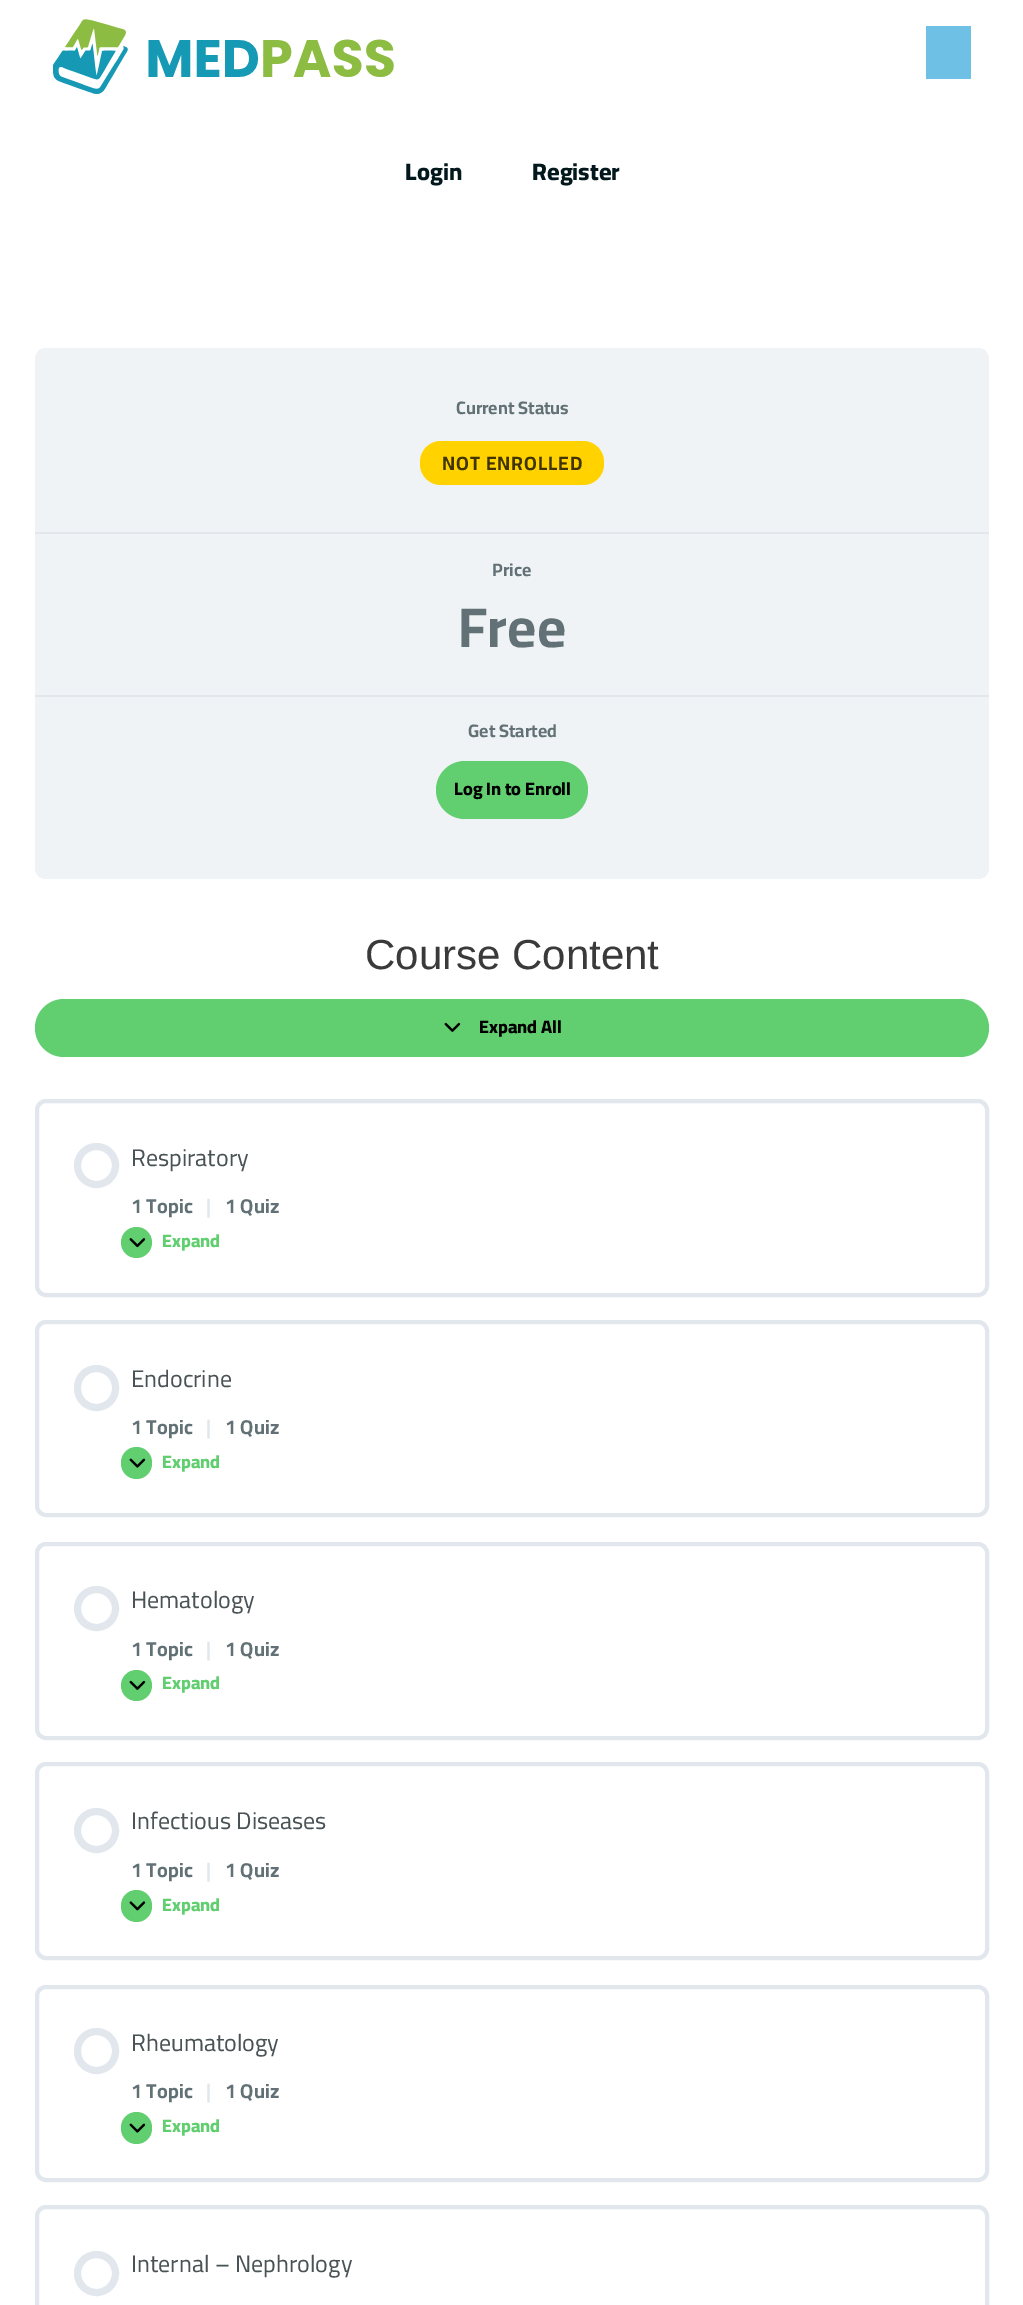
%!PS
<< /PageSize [1023 2305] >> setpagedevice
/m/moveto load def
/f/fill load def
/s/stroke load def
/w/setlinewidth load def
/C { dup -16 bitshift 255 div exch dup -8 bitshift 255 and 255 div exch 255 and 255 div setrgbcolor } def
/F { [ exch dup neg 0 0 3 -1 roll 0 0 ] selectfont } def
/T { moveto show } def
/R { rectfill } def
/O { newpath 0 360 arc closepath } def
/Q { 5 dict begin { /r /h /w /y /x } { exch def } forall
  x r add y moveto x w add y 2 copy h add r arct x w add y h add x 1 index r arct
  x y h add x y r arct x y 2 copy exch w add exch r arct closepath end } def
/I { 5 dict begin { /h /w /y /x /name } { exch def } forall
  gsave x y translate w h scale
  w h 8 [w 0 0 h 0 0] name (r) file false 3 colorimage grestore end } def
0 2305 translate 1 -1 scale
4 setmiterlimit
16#FFFFFF C
0 0 1023 2305 R
(1.rgb) 53 19 341 75 I
16#6EC1E4 C
926 26 45 53 R
/Cairo-ExtraBold 24 F
16#03181D C
(Login) 405 180 T
(Register) 532 180 T
16#F0F3F6 C
35 348 954 531 11 Q f
16#E2E7ED C
35 532 954 2 R
/Cairo-Bold 18 F
16#617175 C
(Current Status) 456 414 T
16#FFD200 C
420 441 184 44 21 Q f
/Cairo-Bold 19.25 F
16#403500 C
442 470 m .9 0 (NOT ENROLLED) ashow
16#E2E7ED C
35 695 954 2 R
/Cairo-Bold 18 F
16#617175 C
(Price) 492 576 T
/Cairo-Bold 56 F
(Free) 458 647 T
/Cairo-Bold 18 F
(Get Started) 468 737 T
16#61CE70 C
436 761 152 58 29 Q f
/Cairo-ExtraBold 18 F
16#000000 C
(Log In to Enroll) 454 795 T
/LiberationSans-Regular 42 F
16#3A3A3A C
(Course Content) 365 969 T
16#61CE70 C
35 999 954 58 29 Q f
(2.rgb) 444 1022 17 10 I
/Cairo-ExtraBold 18 F
16#000000 C
(Expand All) 479 1033 T
16#E2E7ED C
4 w
37 1101 950 194 9 Q s
7 w
96.5 1165.5 19 O s
/Cairo-Regular 24 F
16#495255 C
(Respiratory) 131 1166 T
/Cairo-Bold 20 F
16#617175 C
(1 Topic) 131 1213 T
16#E2E7ED C
(|) 206 1213 T
16#617175 C
(1 Quiz) 225 1213 T
16#61CE70 C
136.5 1242.5 15.5 O f
(3.rgb) 129 1238 17 10 I
/Cairo-ExtraBold 18 F
(Expand) 162 1247 T
16#E2E7ED C
4 w
37 1322 950 193 9 Q s
7 w
77.5 1368.5 38 39 19 Q s
/Cairo-Regular 24 F
16#495255 C
(Endocrine) 131 1387 T
/Cairo-Bold 20 F
16#617175 C
(1 Topic) 131 1434 T
16#E2E7ED C
(|) 206 1434 T
16#617175 C
(1 Quiz) 225 1434 T
16#61CE70 C
121 1447 31 32 15.5 Q f
(4.rgb) 129 1458 17 10 I
/Cairo-ExtraBold 18 F
(Expand) 162 1468 T
16#E2E7ED C
4 w
37 1544 950 194 9 Q s
7 w
96.5 1608.5 19 O s
/Cairo-Regular 24 F
16#495255 C
(Hematology) 131 1608 T
/Cairo-Bold 20 F
16#617175 C
(1 Topic) 131 1656 T
16#E2E7ED C
(|) 206 1656 T
16#617175 C
(1 Quiz) 225 1656 T
16#61CE70 C
136.5 1685.5 15.5 O f
(2.rgb) 129 1680 17 10 I
/Cairo-ExtraBold 18 F
(Expand) 162 1689 T
16#E2E7ED C
4 w
37 1764 950 194 9 Q s
7 w
96.5 1830.5 19 O s
/Cairo-Regular 24 F
16#495255 C
(Infectious Diseases) 131 1829 T
/Cairo-Bold 20 F
16#617175 C
(1 Topic) 131 1877 T
16#E2E7ED C
(|) 206 1877 T
16#617175 C
(1 Quiz) 225 1877 T
16#61CE70 C
121 1890 31 32 15.5 Q f
(5.rgb) 129 1901 17 10 I
/Cairo-ExtraBold 18 F
(Expand) 162 1911 T
16#E2E7ED C
4 w
37 1987 950 193 9 Q s
7 w
77.5 2031.5 38 39 19 Q s
/Cairo-Regular 24 F
16#495255 C
(Rheumatology) 131 2051 T
/Cairo-Bold 20 F
16#617175 C
(1 Topic) 131 2098 T
16#E2E7ED C
(|) 206 2098 T
16#617175 C
(1 Quiz) 225 2098 T
16#61CE70 C
121 2112 31 32 15.5 Q f
(4.rgb) 129 2123 17 10 I
/Cairo-ExtraBold 18 F
(Expand) 162 2132 T
16#E2E7ED C
4 w
37 2207 950 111 9 Q s
7 w
96.5 2273.5 19 O s
/Cairo-Regular 24 F
16#495255 C
(Internal – Nephrology) 131 2272 T
showpage
